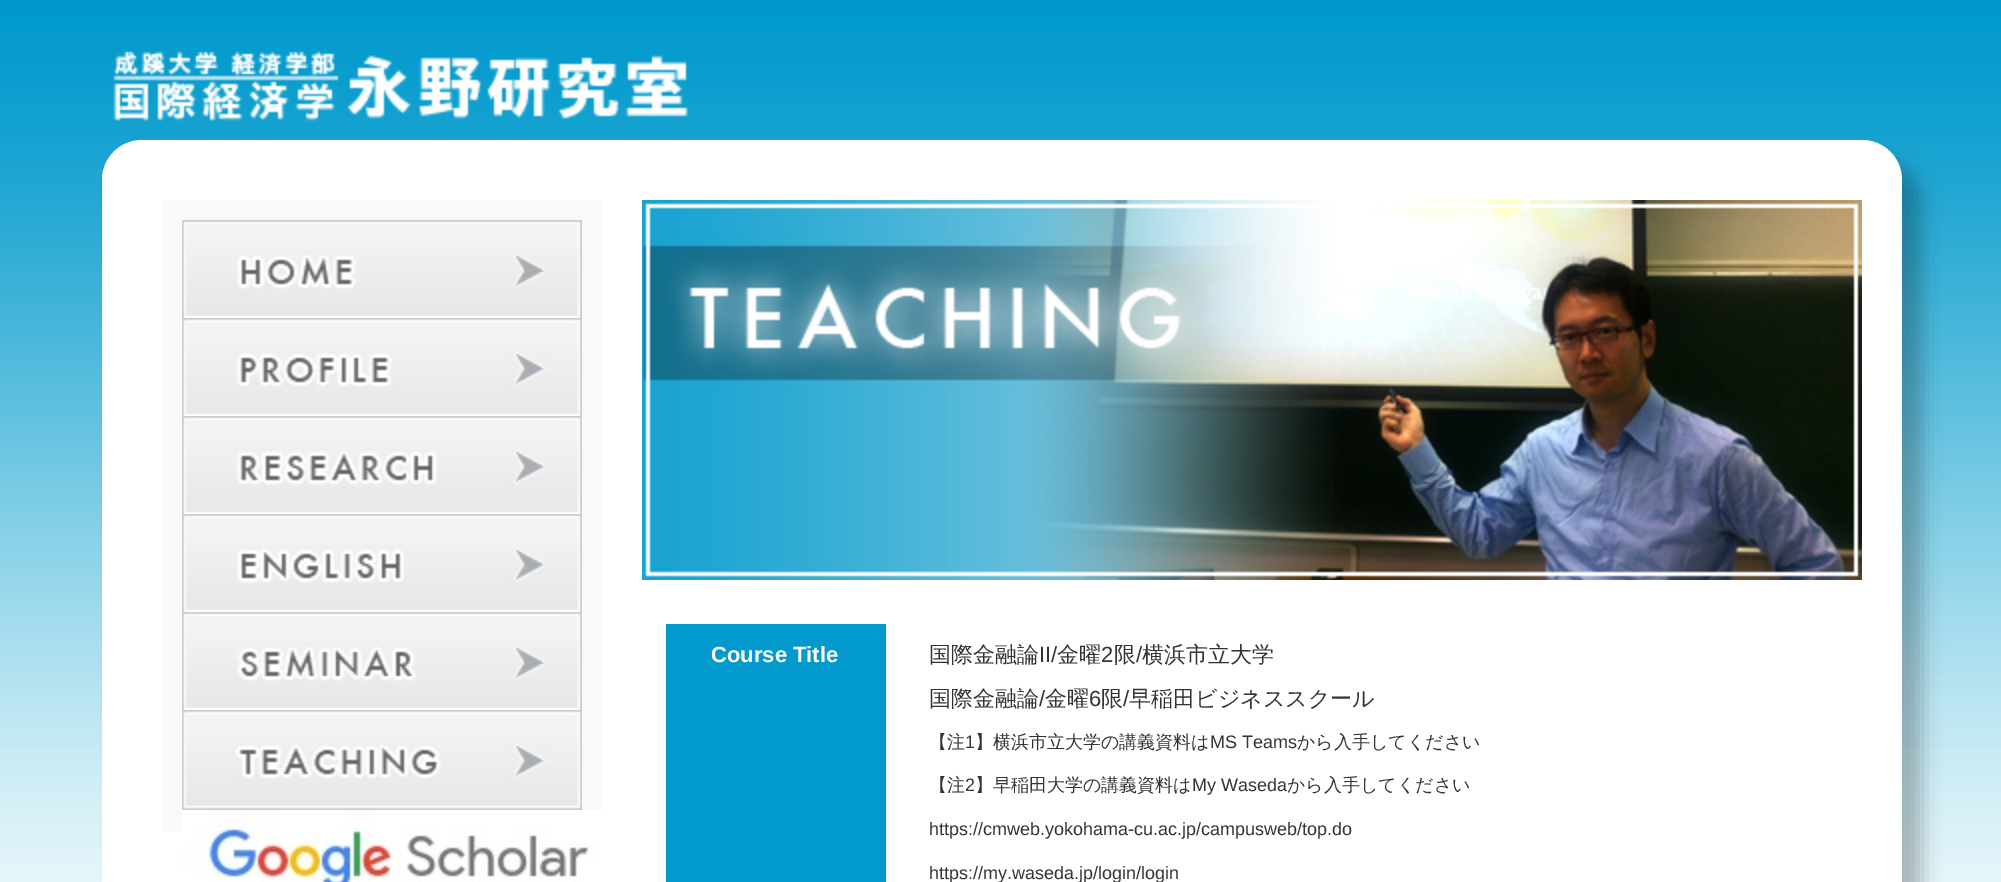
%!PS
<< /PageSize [2001 882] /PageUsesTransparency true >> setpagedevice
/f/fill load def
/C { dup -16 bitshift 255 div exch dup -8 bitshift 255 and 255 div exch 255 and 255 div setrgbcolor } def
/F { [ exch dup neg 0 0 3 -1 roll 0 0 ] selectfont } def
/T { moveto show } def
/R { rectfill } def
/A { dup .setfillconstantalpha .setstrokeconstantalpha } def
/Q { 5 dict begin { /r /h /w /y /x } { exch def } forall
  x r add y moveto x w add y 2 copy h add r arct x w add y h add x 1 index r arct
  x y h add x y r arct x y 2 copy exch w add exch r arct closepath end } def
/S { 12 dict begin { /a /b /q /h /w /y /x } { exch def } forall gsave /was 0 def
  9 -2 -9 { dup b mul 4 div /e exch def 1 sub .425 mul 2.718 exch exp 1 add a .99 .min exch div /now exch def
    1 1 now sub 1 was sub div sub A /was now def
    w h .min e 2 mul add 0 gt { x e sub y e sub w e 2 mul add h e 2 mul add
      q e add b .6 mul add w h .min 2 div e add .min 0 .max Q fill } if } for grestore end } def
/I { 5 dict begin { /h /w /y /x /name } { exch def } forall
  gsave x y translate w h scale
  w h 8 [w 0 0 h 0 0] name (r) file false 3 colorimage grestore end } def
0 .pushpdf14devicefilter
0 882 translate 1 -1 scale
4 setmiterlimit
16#FFFFFF C
0 0 2001 882 R
(1.rgb) 0 0 2001 882 I
(2.rgb) 113 51 575 70 I
16#000000 C
122 160 1800 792 40 10 .25 S
16#FFFFFF C
102 140 1800 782 40 Q f
16#F9F9F9 C
162 200 440 632 R
(3.rgb) 182 220 400 98 I
(4.rgb) 182 318 400 98 I
(5.rgb) 182 416 400 98 I
(6.rgb) 182 514 400 98 I
(7.rgb) 182 612 400 98 I
(8.rgb) 182 710 400 100 I
(9.rgb) 182 810 420 72 I
(10.rgb) 642 200 1220 380 I
16#029ACC C
666 624 220 258 R
/LiberationSans-Bold 22 F
16#FFFFFF C
(Course Title) 711 662 T
/WenQuanYiZenHei-Medium 22 F
16#333333 C
(国際金融論) 929 662 T
/LiberationSans-Regular 22 F
(II/) 1039 662 T
/WenQuanYiZenHei-Medium 22 F
(金曜) 1057 662 T
/LiberationSans-Regular 22 F
(2) 1101 662 T
/WenQuanYiZenHei-Medium 22 F
(限) 1114 662 T
/LiberationSans-Regular 22 F
(/) 1136 662 T
/WenQuanYiZenHei-Medium 22 F
(横浜市立大学) 1142 662 T
(国際金融論) 929 706 T
/LiberationSans-Regular 22 F
(/) 1039 706 T
/WenQuanYiZenHei-Medium 22 F
(金曜) 1045 706 T
/LiberationSans-Regular 22 F
(6) 1089 706 T
/WenQuanYiZenHei-Medium 22 F
(限) 1101 706 T
/LiberationSans-Regular 22 F
(/) 1123 706 T
/WenQuanYiZenHei-Medium 22 F
(早稲田ビジネススクール) 1129 706 T
/WenQuanYiZenHei-Medium 18 F
(【注) 929 748 T
/LiberationSans-Regular 18 F
(1) 965 748 T
/WenQuanYiZenHei-Medium 18 F
(】横浜市立大学の講義資料は) 975 748 T
/LiberationSans-Regular 18 F
(MS Teams) 1210 748 T
/WenQuanYiZenHei-Medium 18 F
(から入手してください) 1297 748 T
(【注) 929 791 T
/LiberationSans-Regular 18 F
(2) 965 791 T
/WenQuanYiZenHei-Medium 18 F
(】早稲田大学の講義資料は) 975 791 T
/LiberationSans-Regular 18 F
(My Waseda) 1192 791 T
/WenQuanYiZenHei-Medium 18 F
(から入手してください) 1287 791 T
/LiberationSans-Regular 18 F
(https://cmweb.yokohama-cu.ac.jp/campusweb/top.do) 929 835 T
(https://my.waseda.jp/login/login) 929 879 T
.poppdf14devicefilter showpage
